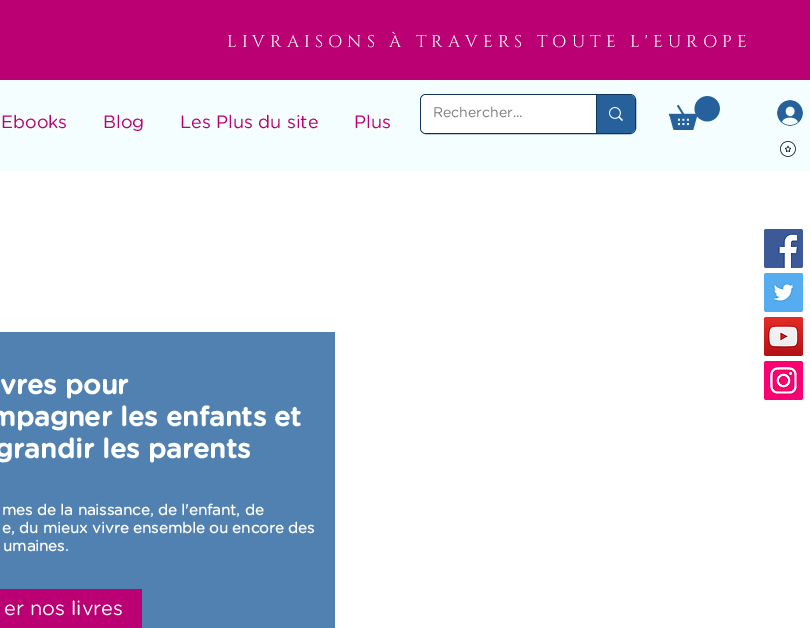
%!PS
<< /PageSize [810 628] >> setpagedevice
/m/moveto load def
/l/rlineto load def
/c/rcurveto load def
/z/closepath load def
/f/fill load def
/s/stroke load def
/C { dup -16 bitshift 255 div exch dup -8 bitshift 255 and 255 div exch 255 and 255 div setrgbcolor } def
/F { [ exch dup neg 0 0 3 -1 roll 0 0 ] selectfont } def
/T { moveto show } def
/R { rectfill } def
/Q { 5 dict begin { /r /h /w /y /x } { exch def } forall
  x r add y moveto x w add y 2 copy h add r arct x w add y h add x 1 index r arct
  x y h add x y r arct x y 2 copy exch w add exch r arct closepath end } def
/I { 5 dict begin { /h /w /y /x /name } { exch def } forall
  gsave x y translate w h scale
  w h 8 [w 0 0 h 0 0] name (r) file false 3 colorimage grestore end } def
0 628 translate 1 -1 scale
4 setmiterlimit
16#FFFFFF C
0 0 810 628 R
16#BB0073 C
0 0 810 80 R
/Cinzel-Regular 17 F
16#FFFFFF C
227 47 m 5.1 0 (LIVRAISONS À TRAVERS TOUTE L'EUROPE) ashow
16#F4FEFE C
0 80 810 91 R
16#0E345A C
420.5 94.5 215 39 5.5 Q s
16#FFFFFF C
421 95 214 38 5 Q f
/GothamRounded-Regular 14 F
16#787878 C
(Rechercher...) 433 117 T
16#26619C C
596 95 m 34 0 l 3 0 5 2 5 5 c 0 28 l 0 3 -2 5 -5 5 c -34 0 l z f
16#0E345A C
596 95 1 38 R
(1.rgb) 609 107 14 14 I
(2.rgb) 669 96 51 34 I
(3.rgb) 777 100 26 26 I
/GothamRounded-Regular 18 F
16#BB0073 C
(Ebooks) 1 128 T
(Blog) 103 128 T
(Les Plus du site) 180 128 T
(Plus) 354 128 T
(4.rgb) 780 141 16 16 I
(5.rgb) 764 229 39 39 I
(6.rgb) 764 273 39 39 I
(7.rgb) 764 317 39 39 I
(8.rgb) 764 361 39 39 I
16#5181B0 C
0 332 335 296 R
/GothamRounded-Bold 27 F
16#FFFFFF C
(vres pour) 0 394 T
(mpagner les enfants et) -10 426 T
(grandir les parents) -5 458 T
/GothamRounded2-Bold 15 F
(mes de la naissance, de l'enfant, de) 2 515 T
(e, du mieux vivre ensemble ou encore des) 2 533 T
(umaines.) 3 551 T
16#BB0073 C
0 589 142 39 R
/GothamRounded-Regular 20 F
16#FFFFFF C
(er nos livres) 4 615 T
showpage
